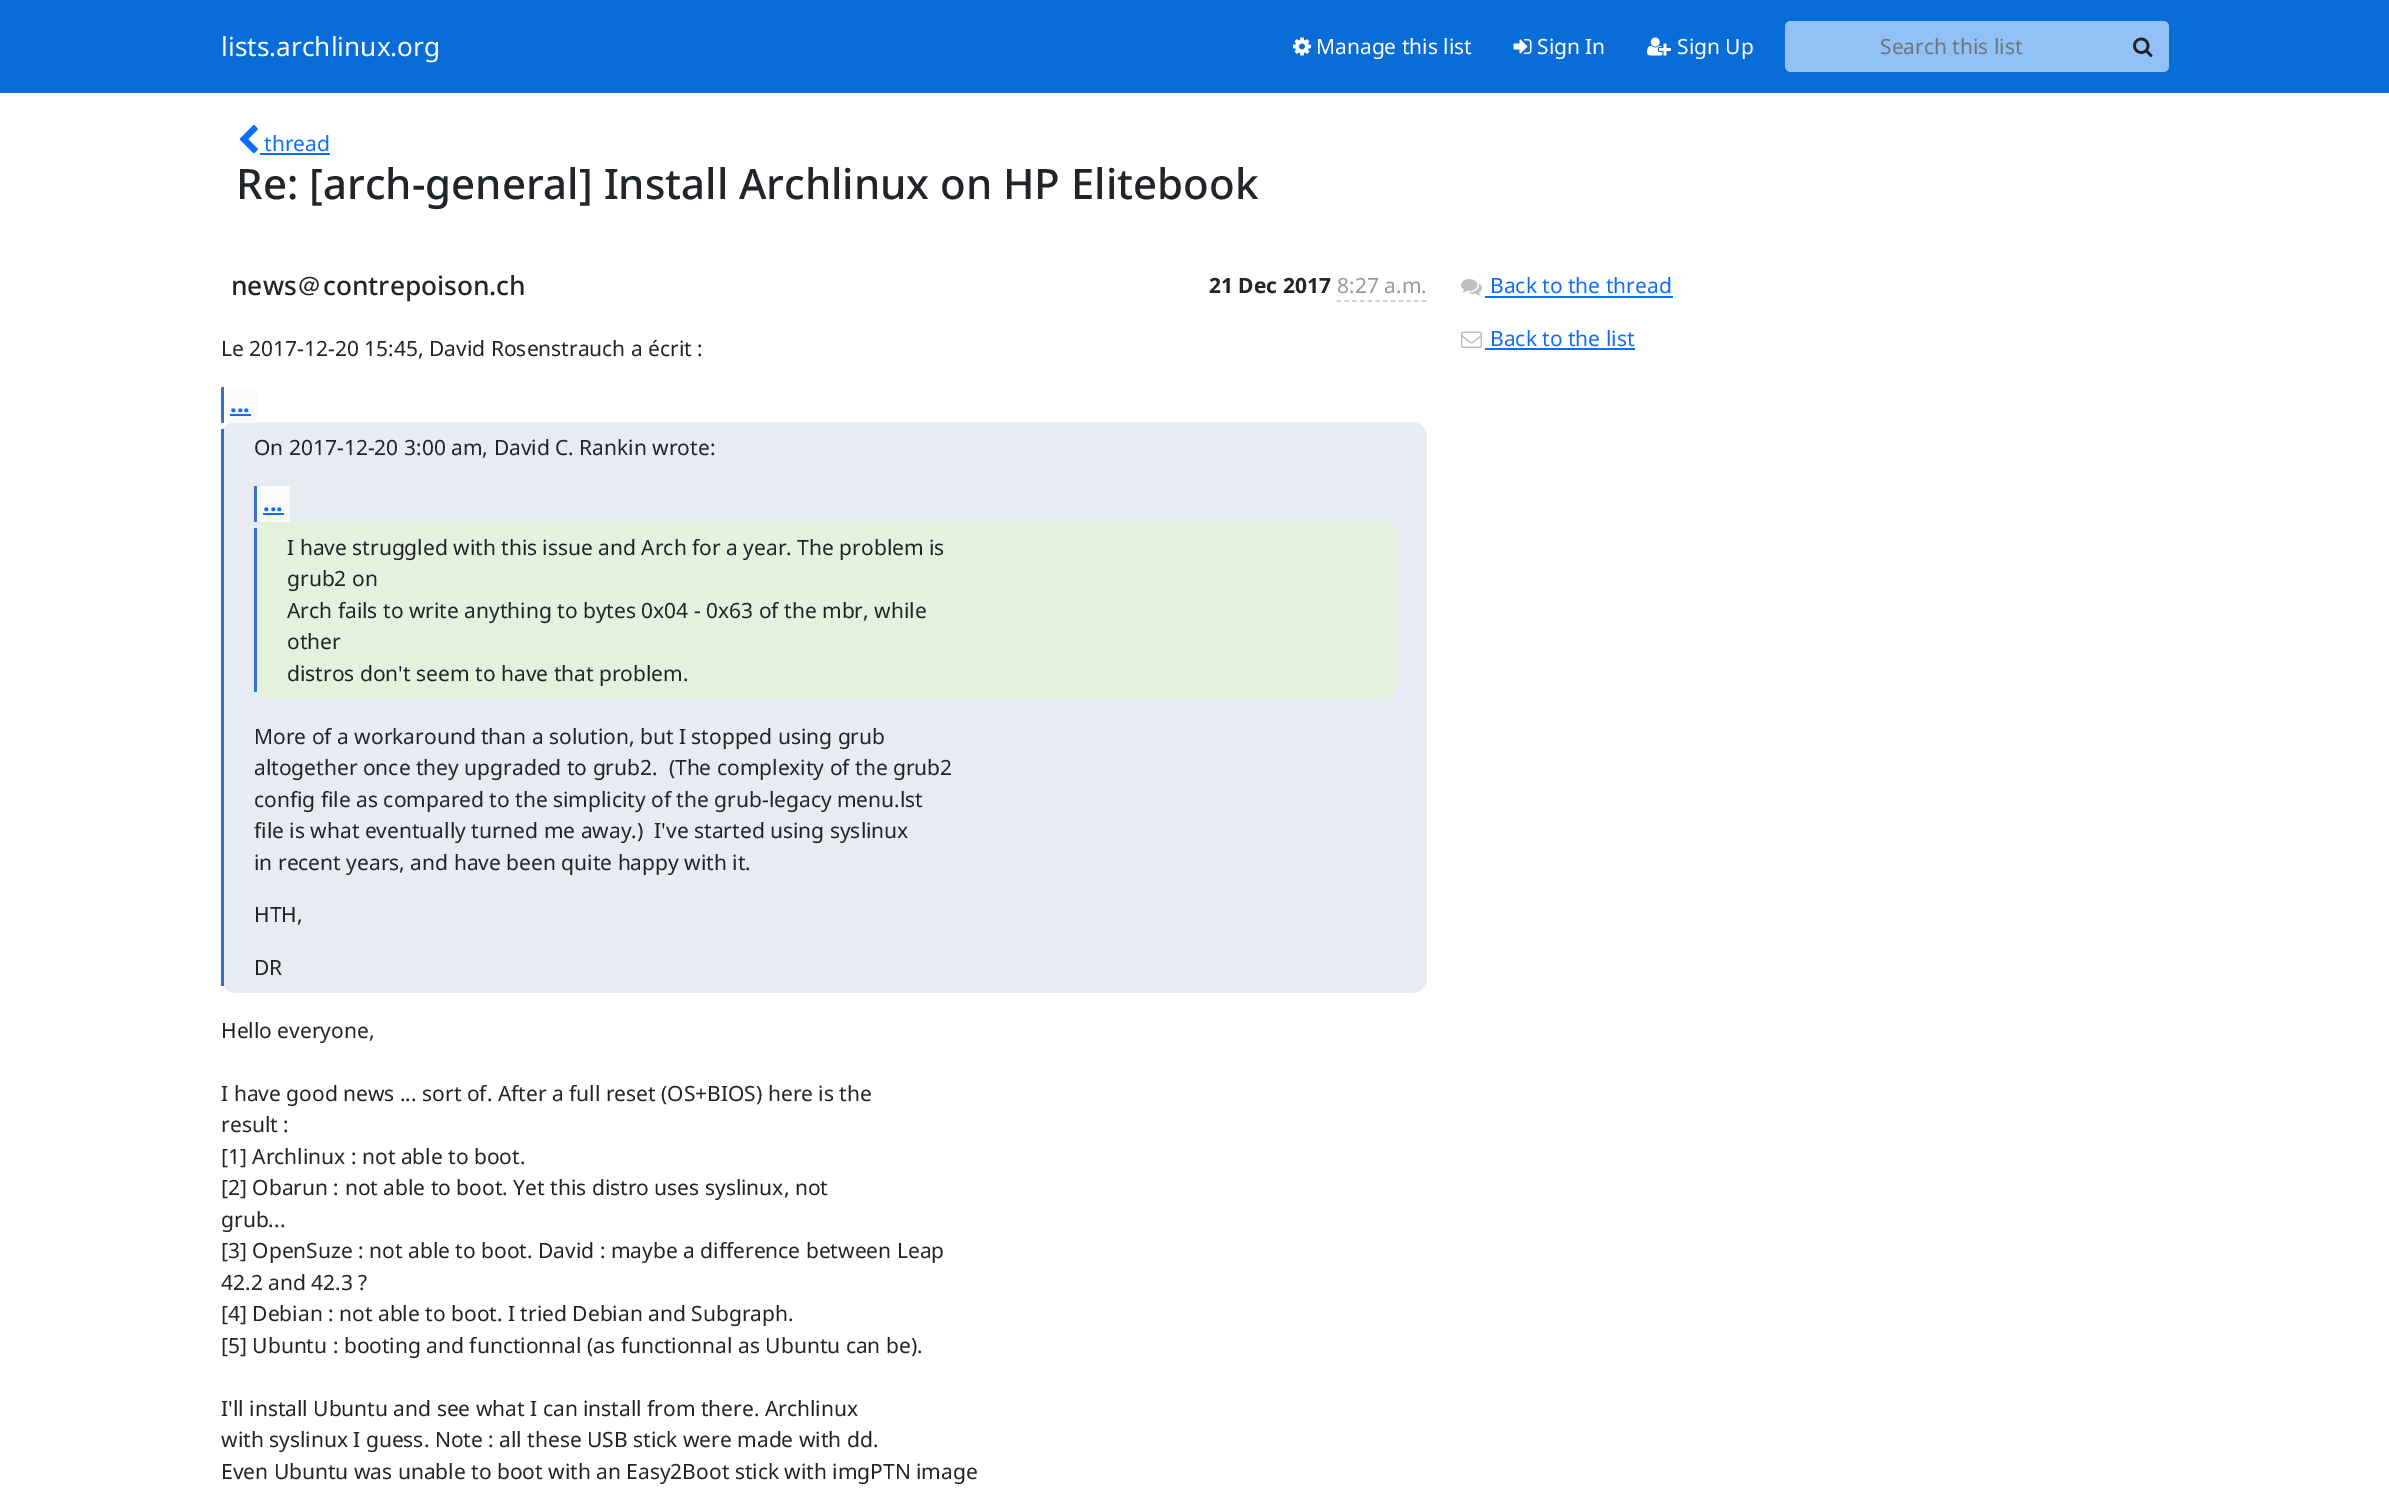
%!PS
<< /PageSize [2389 1488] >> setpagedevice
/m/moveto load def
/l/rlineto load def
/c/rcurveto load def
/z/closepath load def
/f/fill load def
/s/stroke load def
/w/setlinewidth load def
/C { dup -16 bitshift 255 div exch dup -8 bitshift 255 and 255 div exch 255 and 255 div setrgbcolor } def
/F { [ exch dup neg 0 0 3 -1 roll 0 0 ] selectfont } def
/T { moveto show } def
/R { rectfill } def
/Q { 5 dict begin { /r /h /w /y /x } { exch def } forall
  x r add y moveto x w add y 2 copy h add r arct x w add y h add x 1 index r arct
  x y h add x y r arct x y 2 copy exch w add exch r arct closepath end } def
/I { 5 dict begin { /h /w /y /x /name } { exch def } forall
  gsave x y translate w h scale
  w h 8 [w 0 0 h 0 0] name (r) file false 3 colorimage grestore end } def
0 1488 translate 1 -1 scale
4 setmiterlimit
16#FFFFFF C
0 0 2389 1488 R
16#086DD7 C
0 0 2389 93 R
/NotoSans-Regular 26.25 F
16#FFFFFF C
(lists.archlinux.org) 221 56 T
(1.rgb) 1293 37 18 19 I
/NotoSans-Regular 21 F
(Manage this list) 1316 54 T
(2.rgb) 1513 39 19 15 I
(Sign In) 1537 54 T
(3.rgb) 1647 37 24 19 I
(Sign Up) 1677 54 T
16#92C2F5 C
1791 21 m 326 0 l 0 51 l -326 0 l -3.5 0 -6 -2.5 -6 -6 c 0 -39 l 0 -3.5 2.5 -6 6 -6 c z f
16#6C757D C
(Search this list) 1880 54 T
16#92C2F5 C
2115 21 m 48 0 l 3.5 0 6 2.5 6 6 c 0 39 l 0 3.5 -2.5 6 -6 6 c -48 0 l z f
(4.rgb) 2133 37 20 20 I
(5.rgb) 239 125 19 29 I
16#0D6EFD C
(thread) 264 151 T
260 153 70 2 R
/NotoSans-Medium 42 F
16#212529 C
(Re: [arch-general] Install Archlinux on HP Elitebook) 236 199 T
/NotoSans-Medium 26.25 F
(news) 231 295 T
/WenQuanYiZenHei-Medium 26.25 F
(＠) 296 295 T
/NotoSans-Medium 26.25 F
(contrepoison.ch) 323 295 T
/NotoSans-Bold 21 F
(21 Dec 2017) 1209 293 T
/NotoSans-Regular 21 F
16#999999 C
(8:27 a.m.) 1337 293 T
16#CCCCCC C
1.5 w
[4.5 3.27] 0 setdash
1336.5 301 m 90 0 l s
16#212529 C
(Le 2017-12-20 15:45, David Rosenstrauch a écrit :) 221 356 T
16#E8ECF2 C
221 422 1206 571 15 Q f
16#FAFAFA C
224 387 33 36 R
/NotoSans-Bold 24 F
16#0D6EFD C
(...) 230 412 T
16#3771C8 C
221 387 3 36 R
16#0D6EFD C
230 414 21 2 R
16#3771C8 C
221 429 3 557 R
/NotoSans-Regular 21 F
16#212529 C
(On 2017-12-20 3:00 am, David C. Rankin wrote:) 254 455 T
16#E4F1DF C
254 521 1143 178 15 Q f
16#FAFAFA C
257 486 33 36 R
/NotoSans-Bold 24 F
16#0D6EFD C
(...) 263 511 T
16#3771C8 C
254 486 3 36 R
16#0D6EFD C
263 513 21 2 R
16#3771C8 C
254 528 3 164 R
/NotoSans-Regular 21 F
16#212529 C
(I have struggled with this issue and Arch for a year. The problem is) 287 555 T
(grub2 on) 287 586 T
(Arch fails to write anything to bytes 0x04 - 0x63 of the mbr, while) 287 618 T
(other) 287 649 T
(distros don't seem to have that problem.) 287 681 T
(More of a workaround than a solution, but I stopped using grub) 254 744 T
(altogether once they upgraded to grub2.  \(The complexity of the grub2) 254 775 T
(config file as compared to the simplicity of the grub-legacy menu.lst) 254 807 T
(file is what eventually turned me away.\)  I've started using syslinux) 254 838 T
(in recent years, and have been quite happy with it.) 254 870 T
(HTH,) 254 922 T
(DR) 254 975 T
(Hello everyone,) 221 1038 T
(I have good news ... sort of. After a full reset \(OS+BIOS\) here is the) 221 1101 T
(result :) 221 1132 T
([1] Archlinux : not able to boot.) 221 1164 T
([2] Obarun : not able to boot. Yet this distro uses syslinux, not) 221 1195 T
(grub...) 221 1227 T
([3] OpenSuze : not able to boot. David : maybe a difference between Leap) 221 1258 T
(42.2 and 42.3 ?) 221 1290 T
([4] Debian : not able to boot. I tried Debian and Subgraph.) 221 1321 T
([5] Ubuntu : booting and functionnal \(as functionnal as Ubuntu can be\).) 221 1353 T
(I'll install Ubuntu and see what I can install from there. Archlinux) 221 1416 T
(with syslinux I guess. Note : all these USB stick were made with dd.) 221 1447 T
(Even Ubuntu was unable to boot with an Easy2Boot stick with imgPTN image) 221 1479 T
(6.rgb) 1461 279 21 17 I
16#0D6EFD C
(Back to the thread) 1490 293 T
1485 296 188 2 R
(7.rgb) 1461 331 21 17 I
(Back to the list) 1490 346 T
1485 348 150 2 R
showpage
